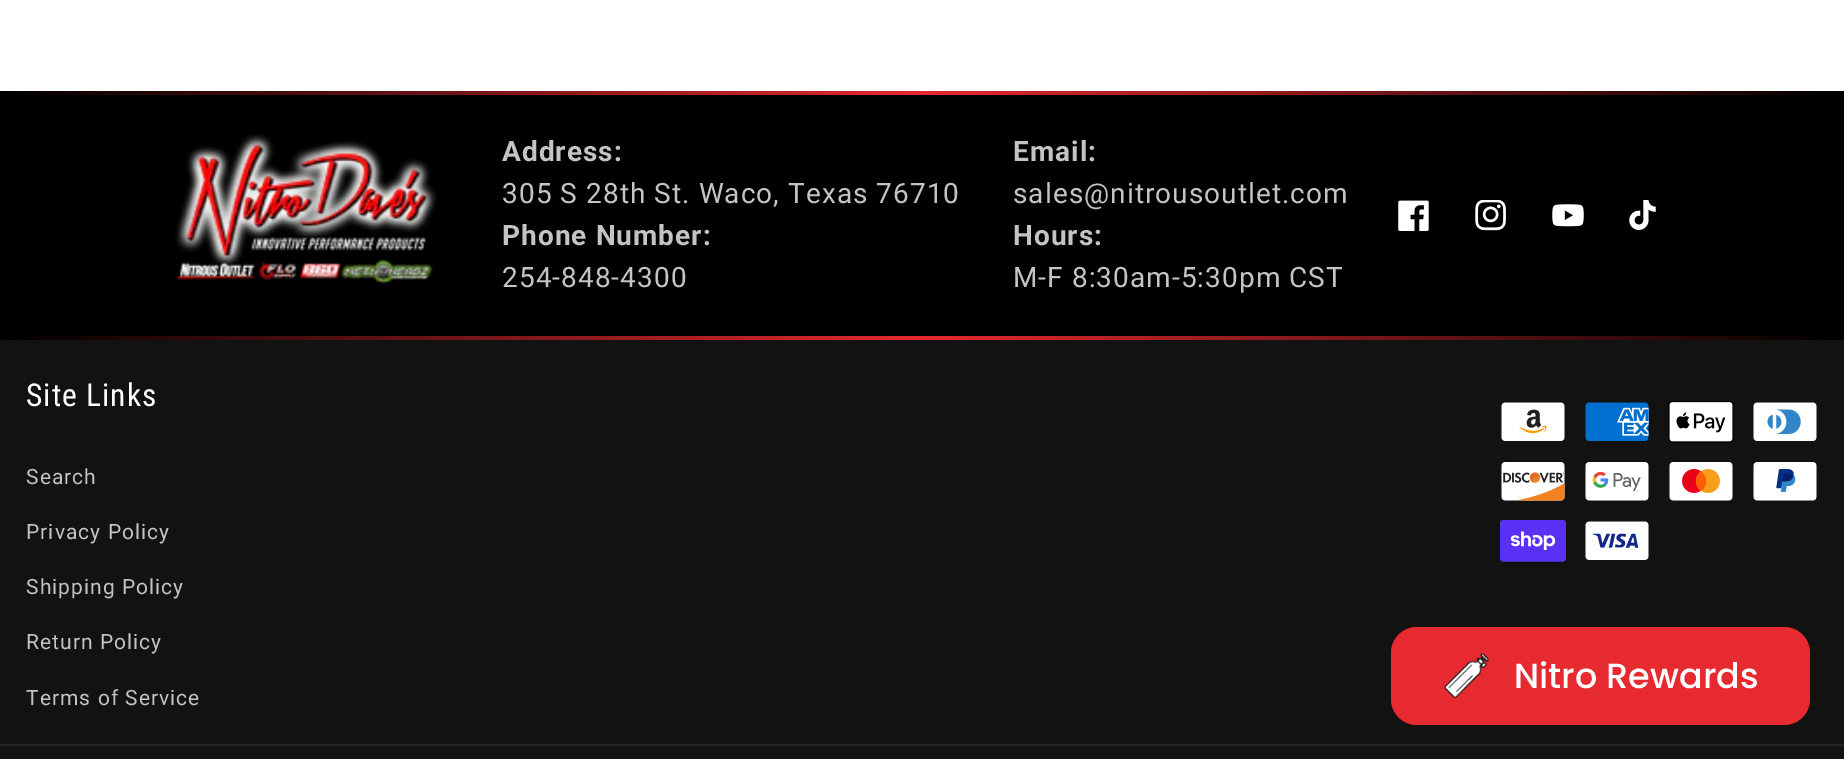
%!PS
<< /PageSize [1844 759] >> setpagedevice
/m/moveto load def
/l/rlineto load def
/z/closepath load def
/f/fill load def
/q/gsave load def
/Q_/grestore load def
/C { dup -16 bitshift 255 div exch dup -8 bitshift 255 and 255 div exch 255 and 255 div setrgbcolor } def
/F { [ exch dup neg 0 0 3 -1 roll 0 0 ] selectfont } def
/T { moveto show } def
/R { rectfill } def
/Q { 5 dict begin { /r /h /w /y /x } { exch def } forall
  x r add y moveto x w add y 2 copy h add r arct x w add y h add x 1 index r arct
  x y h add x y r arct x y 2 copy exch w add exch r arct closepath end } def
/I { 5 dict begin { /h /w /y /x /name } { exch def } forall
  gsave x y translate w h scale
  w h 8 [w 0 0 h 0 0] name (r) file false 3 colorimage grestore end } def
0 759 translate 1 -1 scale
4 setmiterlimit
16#FFFFFF C
0 0 1844 759 R
16#121212 C
0 340 1844 419 R
16#000000 C
0 95 1844 241 R
q 0 91 m 1844 0 l 0 4 l -1844 0 l z clip newpath
<< /ShadingType 2 /ColorSpace /DeviceRGB /Coords [0 93 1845 93] /Extend [true true] /Function << /FunctionType 3 /Domain [0 1] /Functions [<< /FunctionType 2 /Domain [0 1] /C0 [0 0 0] /C1 [.906 .161 .188] /N 1 >> << /FunctionType 2 /Domain [0 1] /C0 [.906 .161 .188] /C1 [0 0 0] /N 1 >>] /Bounds [.5] /Encode [0 1 0 1] >> >> shfill Q_
(1.rgb) 175 134 262 150 I
/Roboto-Bold 28 F
16#C4C4C4 C
502 161 m 1.05 0 (Address:) ashow
/Roboto-Regular 28 F
502 203 m 1.05 0 (305 S 28th St. Waco, Texas 76710) ashow
/Roboto-Bold 28 F
502 245 m 1.05 0 (Phone Number:) ashow
/Roboto-Regular 28 F
502 287 m 1.05 0 (254-848-4300) ashow
/Roboto-Bold 28 F
1013 161 m 1.05 0 (Email:) ashow
/Roboto-Regular 28 F
1013 203 m 1.05 0 (sales@nitrousoutlet.com) ashow
/Roboto-Bold 28 F
1013 245 m 1.05 0 (Hours:) ashow
/Roboto-Regular 28 F
1013 287 m 1.05 0 (M-F 8:30am-5:30pm CST) ashow
(2.rgb) 1398 200 31 31 I
(3.rgb) 1475 200 31 31 I
(4.rgb) 1552 204 32 23 I
(5.rgb) 1629 200 27 30 I
q 0 336 m 1844 0 l 0 4 l -1844 0 l z clip newpath
<< /ShadingType 2 /ColorSpace /DeviceRGB /Coords [0 338 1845 338] /Extend [true true] /Function << /FunctionType 3 /Domain [0 1] /Functions [<< /FunctionType 2 /Domain [0 1] /C0 [0 0 0] /C1 [.906 .161 .188] /N 1 >> << /FunctionType 2 /Domain [0 1] /C0 [.906 .161 .188] /C1 [0 0 0] /N 1 >>] /Bounds [.5] /Encode [0 1 0 1] >> >> shfill Q_
/RobotoCondensed-Regular 31.5 F
16#FFFFFF C
26 406 m 1.05 0 (Site Links) ashow
/Roboto-Regular 21 F
16#C4C4C4 C
26 484 m 1.05 0 (Search) ashow
26 539 m 1.05 0 (Privacy Policy) ashow
26 594 m 1.05 0 (Shipping Policy) ashow
26 649 m 1.05 0 (Return Policy) ashow
26 705 m 1.05 0 (Terms of Service) ashow
(6.rgb) 1501 402 64 39 I
(7.rgb) 1585 402 64 39 I
(8.rgb) 1668 401 66 42 I
(9.rgb) 1753 402 64 39 I
(10.rgb) 1501 462 64 39 I
(11.rgb) 1585 462 64 39 I
(12.rgb) 1669 462 64 39 I
(13.rgb) 1753 462 64 39 I
(14.rgb) 1500 520 66 42 I
(15.rgb) 1585 521 64 39 I
16#252525 C
0 744 1844 2 R
16#E72930 C
1391 627 419 98 26 Q f
(16.rgb) 1444 652 45 47 I
/Poppins-Medium 35 F
16#FFFFFF C
(Nitro Rewards) 1514 688 T
showpage
